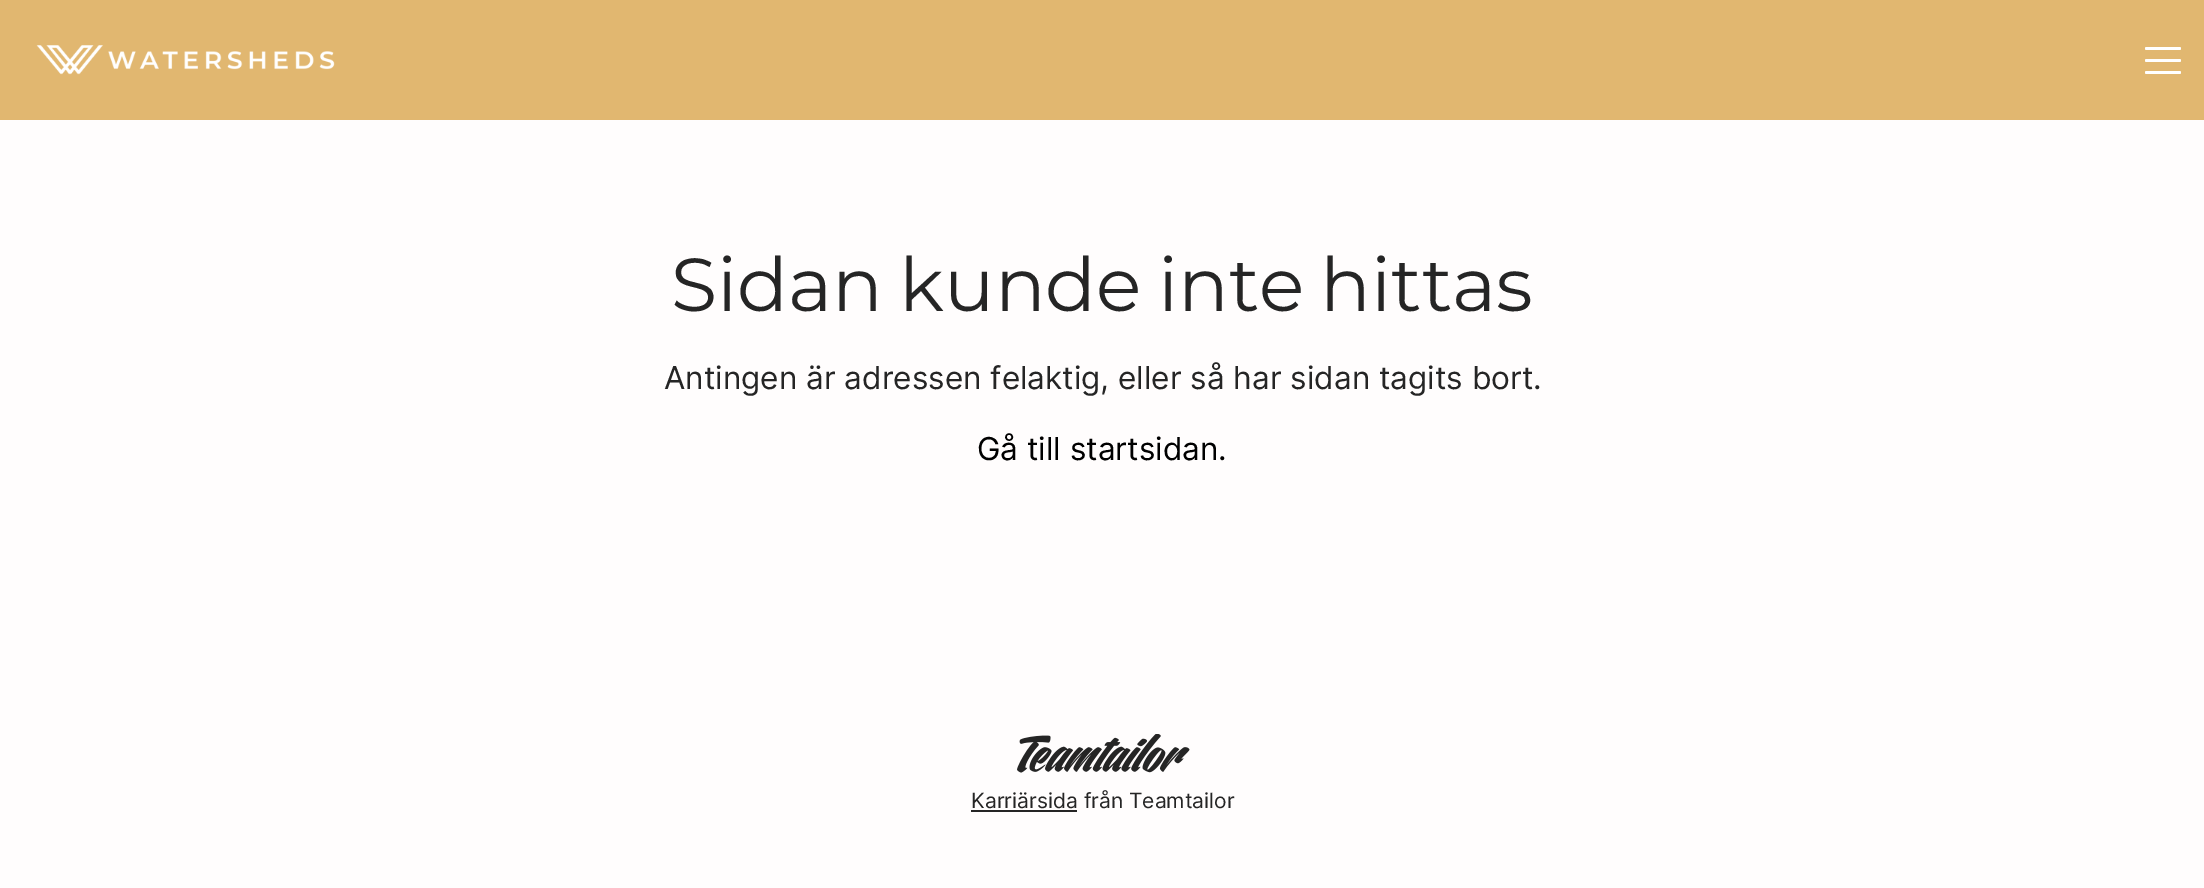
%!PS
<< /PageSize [2204 888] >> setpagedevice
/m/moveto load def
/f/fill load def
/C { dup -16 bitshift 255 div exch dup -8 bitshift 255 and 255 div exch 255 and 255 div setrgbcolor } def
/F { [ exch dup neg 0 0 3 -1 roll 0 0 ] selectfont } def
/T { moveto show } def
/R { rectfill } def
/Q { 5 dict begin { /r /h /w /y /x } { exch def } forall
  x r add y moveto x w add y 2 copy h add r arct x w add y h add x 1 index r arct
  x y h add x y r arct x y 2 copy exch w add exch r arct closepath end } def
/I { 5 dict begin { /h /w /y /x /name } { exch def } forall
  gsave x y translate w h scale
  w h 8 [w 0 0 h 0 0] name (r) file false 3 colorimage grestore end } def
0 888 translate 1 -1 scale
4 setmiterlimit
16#FFFDFD C
0 0 2204 888 R
16#E1B770 C
0 0 2204 120 R
(1.rgb) 36 45 299 30 I
16#FFFFFF C
2145 47 36 3 1.5 Q f
2145 59 36 3 1.5 Q f
2145 71 36 3 1.5 Q f
/Montserrat-Regular 75 F
16#252525 C
671 311 m -3.5 0 32 (Sidan kunde inte hittas) widthshow
/Inter-Regular 31.5 F
(Antingen är adressen felaktig, eller så har sidan tagits bort.) 664 389 T
16#000000 C
(Gå till startsidan.) 977 460 T
(2.rgb) 1017 734 173 39 I
/Inter-Regular 21 F
16#252525 C
(Karriärsida från Teamtailor) 971 808 T
971 810 106 2 R
showpage
